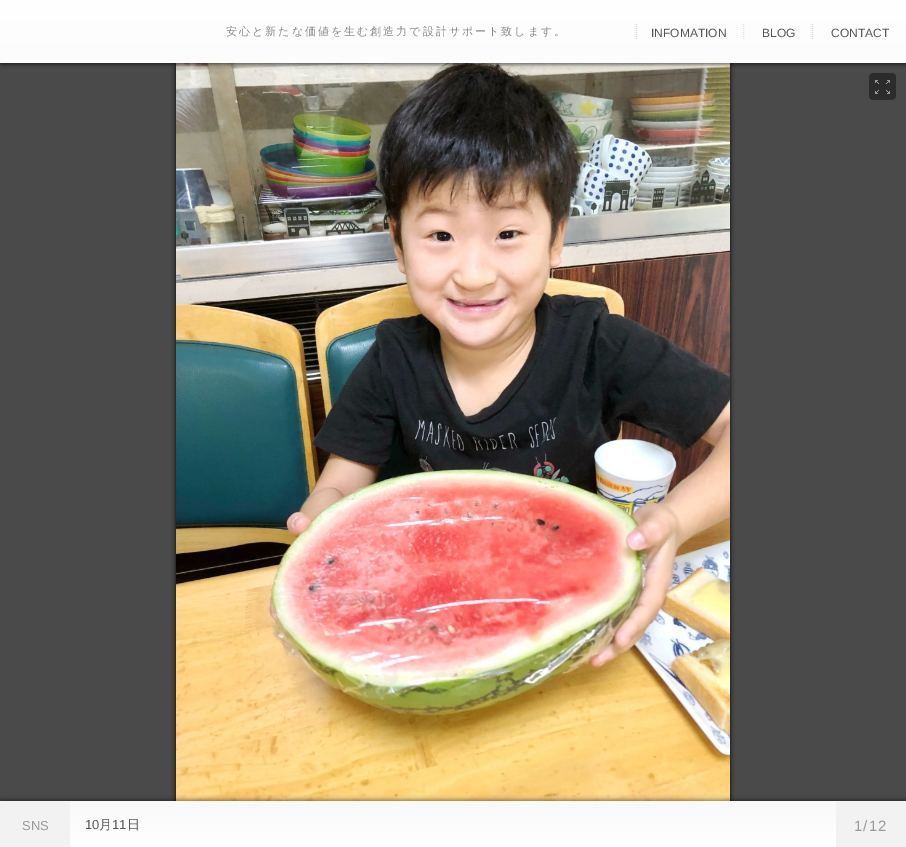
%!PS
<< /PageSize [906 847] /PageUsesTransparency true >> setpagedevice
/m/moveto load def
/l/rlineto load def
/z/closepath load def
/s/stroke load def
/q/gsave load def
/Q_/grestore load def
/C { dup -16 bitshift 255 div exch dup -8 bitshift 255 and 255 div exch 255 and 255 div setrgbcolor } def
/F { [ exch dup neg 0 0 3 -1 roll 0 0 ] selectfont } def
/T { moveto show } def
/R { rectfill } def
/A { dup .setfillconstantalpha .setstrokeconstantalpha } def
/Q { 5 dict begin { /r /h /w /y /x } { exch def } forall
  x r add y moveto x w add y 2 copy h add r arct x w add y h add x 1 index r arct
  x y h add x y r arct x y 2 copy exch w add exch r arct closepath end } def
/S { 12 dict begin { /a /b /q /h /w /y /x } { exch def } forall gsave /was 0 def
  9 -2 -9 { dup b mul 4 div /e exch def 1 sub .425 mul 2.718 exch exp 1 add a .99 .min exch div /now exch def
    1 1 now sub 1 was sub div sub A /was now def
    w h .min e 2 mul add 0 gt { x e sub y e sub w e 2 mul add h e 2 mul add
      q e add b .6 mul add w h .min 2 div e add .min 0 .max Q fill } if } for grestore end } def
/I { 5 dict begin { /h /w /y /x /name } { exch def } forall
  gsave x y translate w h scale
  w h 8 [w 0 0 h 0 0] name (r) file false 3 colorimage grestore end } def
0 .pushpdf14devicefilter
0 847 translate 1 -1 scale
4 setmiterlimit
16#4A4A4A C
0 0 906 847 R
16#000000 C
176 64 554 738 0 2.5 .9 S
(1.rgb) 176 63 554 738 I
1 1 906 63 0 2.5 .7 S
q 0 0 m 906 0 l 0 63 l -906 0 l z clip newpath
<< /ShadingType 2 /ColorSpace /DeviceRGB /Coords [453 0 453 63] /Extend [true true] /Function << /FunctionType 2 /Domain [0 1] /C0 [1 1 1] /C1 [.988 .988 .988] /N 1 >> >> shfill Q_
/WenQuanYiZenHei-Medium 11 F
16#888888 C
226 35 m 2 0 (安心と新たな価値を生む創造力で設計サポート致します。) ashow
16#DDDDDD C
[1 1] 0 setdash
636.5 24 m 0 16 l s
/LiberationSans-Regular 12 F
16#555555 C
(INFOMATION) 651 37 T
16#DDDDDD C
743.5 24 m 0 16 l s
16#555555 C
(BLOG) 762 37 T
16#DDDDDD C
812.5 24 m 0 16 l s
16#555555 C
(CONTACT) 831 37 T
(2.rgb) 869 73 27 27 I
16#000000 C
1 800 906 46 0 2.5 .5 S
q 70 801 m 766 0 l 0 46 l -766 0 l z clip newpath
<< /ShadingType 2 /ColorSpace /DeviceRGB /Coords [453 801 453 847] /Extend [true true] /Function << /FunctionType 2 /Domain [0 1] /C0 [.976 .976 .976] /C1 [1 1 1] /N 1 >> >> shfill Q_
16#F2F2F2 C
0 801 70 46 R
/LiberationSans-Regular 13 F
16#999999 C
(SNS) 22 830 T
16#555555 C
(10) 85 829 T
/WenQuanYiZenHei-Medium 13 F
(月) 99 829 T
/LiberationSans-Regular 13 F
(11) 112 829 T
/WenQuanYiZenHei-Medium 13 F
(日) 127 829 T
16#F2F2F2 C
836 801 70 46 R
/LiberationSans-Regular 15 F
16#999999 C
854 831 m 1 0 (1/12) ashow
.poppdf14devicefilter showpage
